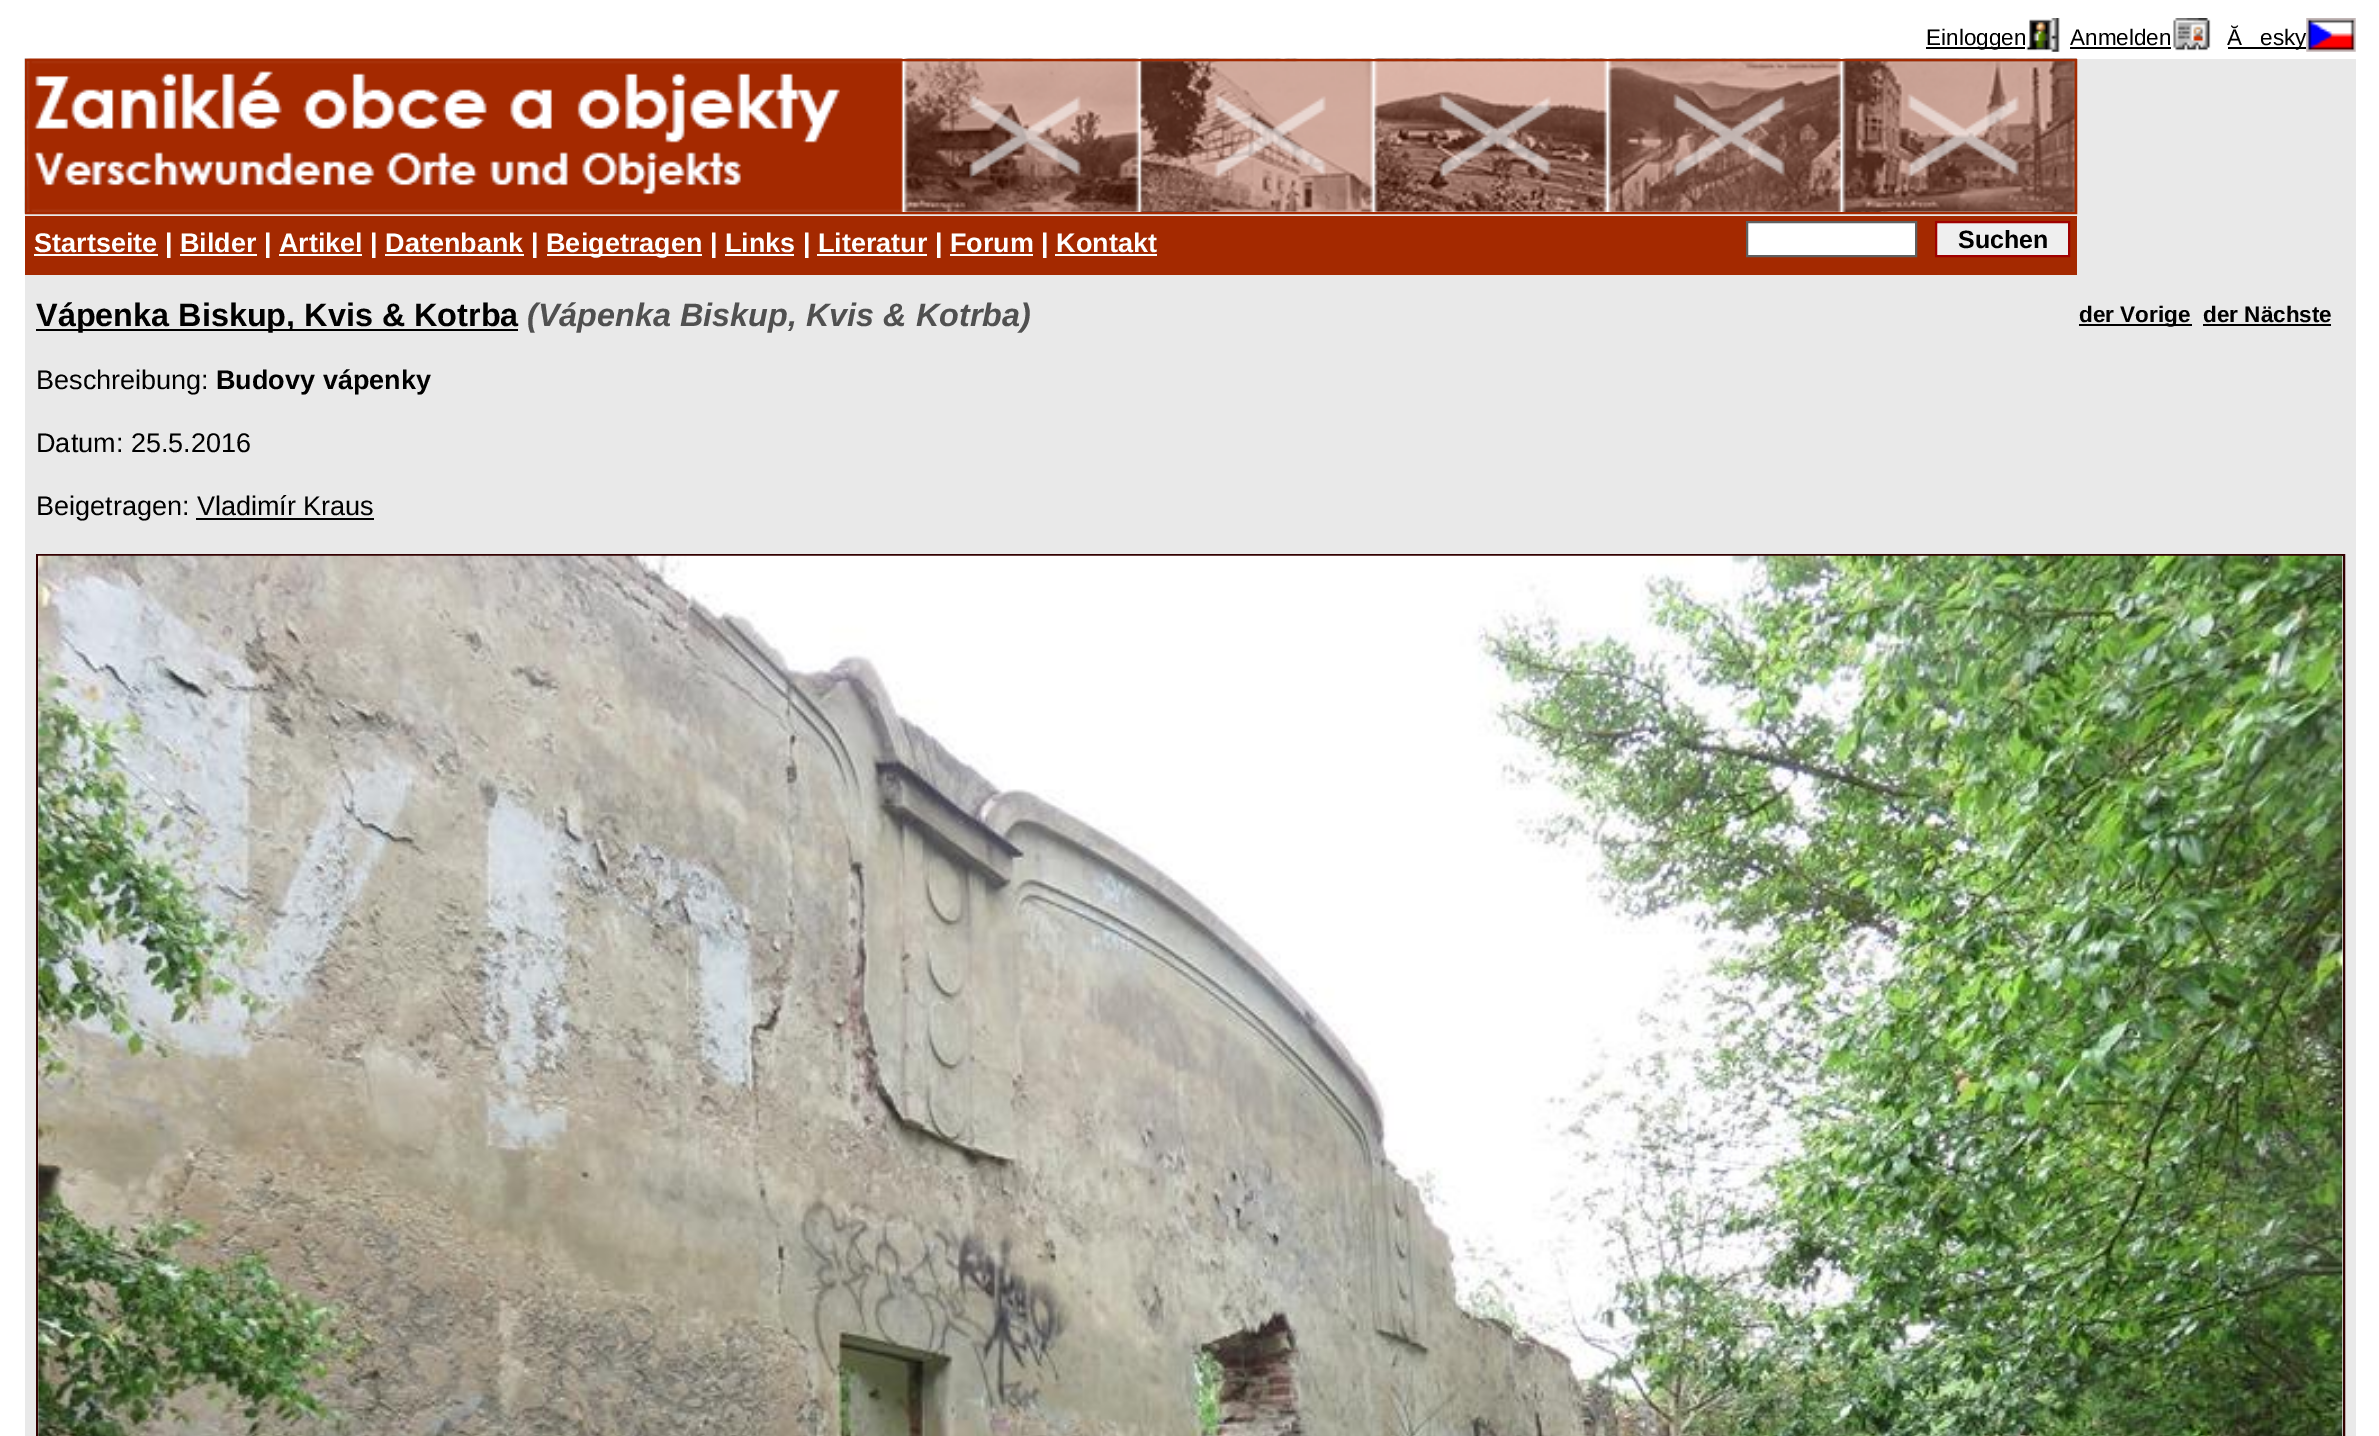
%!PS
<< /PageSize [2379 1436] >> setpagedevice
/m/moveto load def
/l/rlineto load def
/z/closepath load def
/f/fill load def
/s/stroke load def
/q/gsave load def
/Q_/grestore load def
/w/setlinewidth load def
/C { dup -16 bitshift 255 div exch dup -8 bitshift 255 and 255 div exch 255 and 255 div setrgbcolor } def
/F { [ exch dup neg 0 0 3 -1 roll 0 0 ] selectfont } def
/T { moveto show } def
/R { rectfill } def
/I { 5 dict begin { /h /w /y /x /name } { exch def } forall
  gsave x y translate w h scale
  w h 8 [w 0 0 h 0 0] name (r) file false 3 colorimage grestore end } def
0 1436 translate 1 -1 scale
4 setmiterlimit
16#FFFFFF C
0 0 2379 1436 R
16#E9E9E9 C
25 59 2331 1377 R
16#000000 C
1926 47 99 2 R
/LiberationSans-Regular 22.5 F
(Einloggen) 1926 45 T
(1.rgb) 2026 18 34 34 I
(Anmelden) 2070 45 T
2070 47 101 2 R
(2.rgb) 2173 18 38 33 I
(Ă) 2227 45 T
2228 47 78 2 R
(3.rgb) 2306 18 50 34 I
(esky) 2260 45 T
(4.rgb) 24 58 2053 156 I
16#A42900 C
2 w
26 60 2050 153 rectstroke
25 216 2052 59 R
16#FFFFFF C
34 254 124 2 R
/LiberationSans-Bold 27 F
(Startseite | Bilder | Artikel | Datenbank |) 34 252 T
547 254 155 2 R
(Beigetragen | Links | Literatur | Forum | Kontakt) 546 252 T
180 254 77 2 R
279 254 83 2 R
385 254 139 2 R
725 254 69 2 R
817 254 110 2 R
950 254 83 2 R
1055 254 102 2 R
1747 222 m 169 0 l 0 34 l -169 0 l z q f Q_
16#606060 C
s
16#EFEFEF C
1936 222 m 133 0 l 0 34 l -133 0 l z q f Q_
16#A00000 C
s
/LiberationSans-Bold 25 F
16#000000 C
(Suchen) 1958 248 T
36 329 482 2 R
/LiberationSans-Bold 32.4 F
(Vápenka Biskup, Kvis & Kotrba) 36 326 T
/LiberationSans-BoldItalic 32.4 F
16#505050 C
(\(Vápenka Biskup, Kvis & Kotrba\)) 527 326 T
16#000000 C
2079 324 113 2 R
/LiberationSans-Bold 22.5 F
(der Vorige) 2079 322 T
(der Nächste) 2203 322 T
2203 324 128 2 R
/LiberationSans-Regular 27 F
(Beschreibung:) 36 389 T
/LiberationSans-Bold 27 F
(Budovy vápenky) 216 389 T
/LiberationSans-Regular 27 F
(Datum: 25.5.2016) 36 452 T
(Beigetragen: Vladimír Kraus) 36 515 T
196 518 178 2 R
16#330000 C
37 555 2307 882 rectstroke
(5.rgb) 38 555 2305 881 I
showpage
